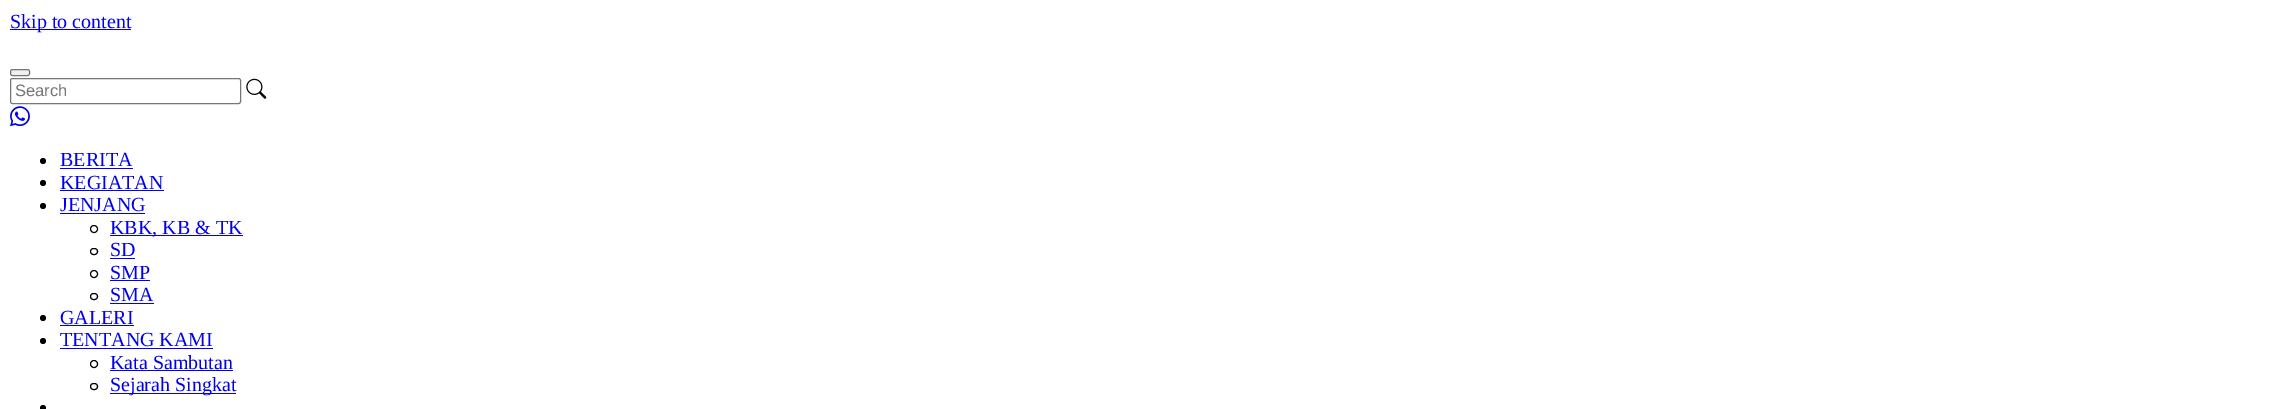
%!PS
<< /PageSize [2290 409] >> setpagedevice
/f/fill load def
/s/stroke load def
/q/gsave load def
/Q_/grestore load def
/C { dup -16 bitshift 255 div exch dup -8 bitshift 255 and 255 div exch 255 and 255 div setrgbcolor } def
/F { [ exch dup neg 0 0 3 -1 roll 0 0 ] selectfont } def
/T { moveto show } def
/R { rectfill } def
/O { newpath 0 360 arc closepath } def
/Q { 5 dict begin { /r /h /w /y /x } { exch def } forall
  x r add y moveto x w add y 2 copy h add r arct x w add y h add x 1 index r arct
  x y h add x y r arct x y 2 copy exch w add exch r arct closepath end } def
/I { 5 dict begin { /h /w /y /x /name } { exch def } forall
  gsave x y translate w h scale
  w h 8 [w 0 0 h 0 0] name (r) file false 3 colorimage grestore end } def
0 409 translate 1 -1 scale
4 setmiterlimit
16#FFFFFF C
0 0 2290 409 R
16#0000EE C
10 29 121 1 R
/LiberationSerif-Regular 20 F
(Skip to content) 10 28 T
16#EFEFEF C
10.5 69.5 19 6 2 Q q f Q_
16#767676 C
s
10.5 78.5 230 25 2 Q s
/LiberationSans-Regular 16.5 F
16#757575 C
(Search) 15 96 T
(1.rgb) 246 78 21 21 I
(2.rgb) 10 106 20 21 I
16#000000 C
43 161 3 O f
/LiberationSerif-Regular 20 F
16#0000EE C
(BERITA) 60 166 T
60 168 73 1 R
16#000000 C
43 183 3 O f
16#0000EE C
(KEGIATAN) 60 189 T
60 190 104 1 R
16#000000 C
43 206 3 O f
16#0000EE C
(JENJANG) 60 211 T
60 213 85 1 R
16#000000 C
94 229 3.5 O s
16#0000EE C
110 235 133 1 R
(KBK, KB & TK) 110 234 T
16#000000 C
90.5 248.5 7 6 3 Q s
16#0000EE C
(SD) 110 256 T
110 258 25 1 R
16#000000 C
94 274 3.5 O s
16#0000EE C
(SMP) 110 279 T
110 280 40 1 R
16#000000 C
90.5 293.5 7 6 3 Q s
16#0000EE C
(SMA) 110 301 T
110 303 44 1 R
16#000000 C
43 318 3 O f
16#0000EE C
(GALERI) 60 324 T
60 325 74 1 R
16#000000 C
43 341 3 O f
16#0000EE C
(TENTANG KAMI) 60 346 T
60 348 153 1 R
16#000000 C
94 364 3.5 O s
16#0000EE C
(Kata Sambutan) 110 369 T
110 370 123 1 R
16#000000 C
90.5 383.5 7 6 3 Q s
16#0000EE C
110 393 126 1 R
(Sejarah Singkat) 110 391 T
16#000000 C
43 408 3 O f
showpage
